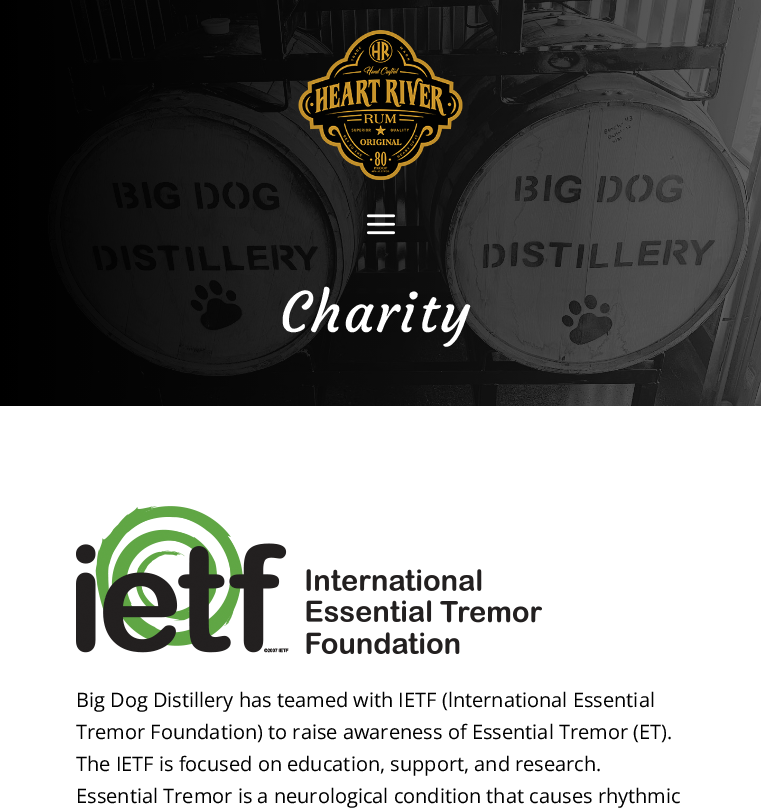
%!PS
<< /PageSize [761 809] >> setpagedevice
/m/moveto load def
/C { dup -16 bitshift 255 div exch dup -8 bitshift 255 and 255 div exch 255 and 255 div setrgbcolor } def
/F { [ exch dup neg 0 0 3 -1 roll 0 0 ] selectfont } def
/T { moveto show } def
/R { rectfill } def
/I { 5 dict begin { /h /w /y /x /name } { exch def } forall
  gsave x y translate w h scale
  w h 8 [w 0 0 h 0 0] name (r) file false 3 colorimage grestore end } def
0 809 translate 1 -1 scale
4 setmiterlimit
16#FFFFFF C
0 0 761 809 R
(3.rgb) 0 0 761 406 I
(1.rgb) 298 30 165 150 I
(2.rgb) 367 214 28 21 I
/Courgette-Regular 55 F
280 332 m 2 0 (Charity) ashow
(4.rgb) 76 506 466 148 I
/OpenSans-Regular 20 F
16#000000 C
(Big Dog Distillery has teamed with IETF \(lnternational Essential) 76 707 T
(Tremor Foundation\) to raise awareness of Essential Tremor \(ET\).) 76 739 T
(The IETF is focused on education, support, and research.) 76 771 T
(Essential Tremor is a neurological condition that causes rhythmic) 76 803 T
showpage
